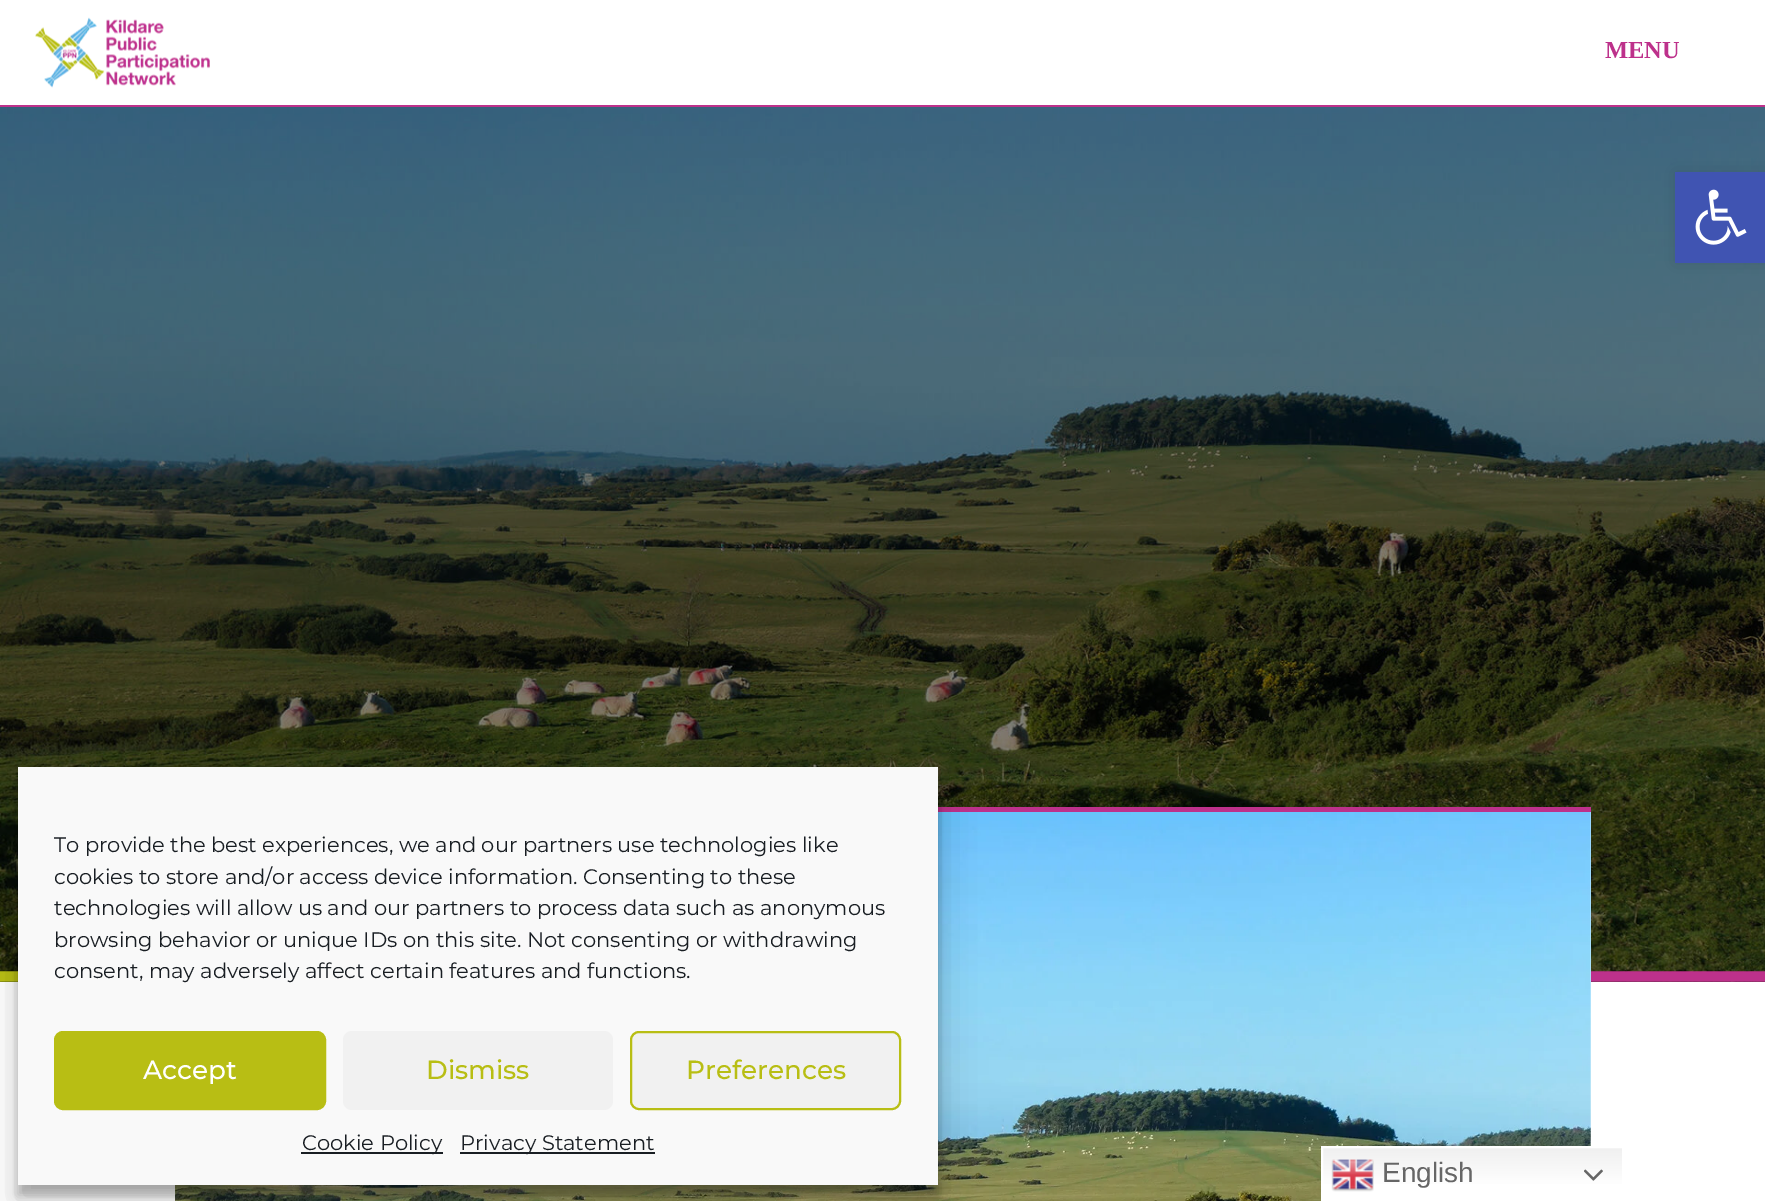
%!PS
<< /PageSize [1765 1201] /PageUsesTransparency true >> setpagedevice
/m/moveto load def
/l/rlineto load def
/z/closepath load def
/f/fill load def
/s/stroke load def
/q/gsave load def
/Q_/grestore load def
/w/setlinewidth load def
/C { dup -16 bitshift 255 div exch dup -8 bitshift 255 and 255 div exch 255 and 255 div setrgbcolor } def
/F { [ exch dup neg 0 0 3 -1 roll 0 0 ] selectfont } def
/T { moveto show } def
/R { rectfill } def
/A { dup .setfillconstantalpha .setstrokeconstantalpha } def
/Q { 5 dict begin { /r /h /w /y /x } { exch def } forall
  x r add y moveto x w add y 2 copy h add r arct x w add y h add x 1 index r arct
  x y h add x y r arct x y 2 copy exch w add exch r arct closepath end } def
/S { 12 dict begin { /a /b /q /h /w /y /x } { exch def } forall gsave /was 0 def
  9 -2 -9 { dup b mul 4 div /e exch def 1 sub .425 mul 2.718 exch exp 1 add a .99 .min exch div /now exch def
    1 1 now sub 1 was sub div sub A /was now def
    w h .min e 2 mul add 0 gt { x e sub y e sub w e 2 mul add h e 2 mul add
      q e add b .6 mul add w h .min 2 div e add .min 0 .max Q fill } if } for grestore end } def
/I { 5 dict begin { /h /w /y /x /name } { exch def } forall
  gsave x y translate w h scale
  w h 8 [w 0 0 h 0 0] name (r) file false 3 colorimage grestore end } def
0 .pushpdf14devicefilter
0 1201 translate 1 -1 scale
4 setmiterlimit
16#FFFFFF C
0 0 1765 1201 R
(1.rgb) 35 17 175 71 I
/LiberationSerif-Bold 24.5 F
16#BD318B C
(MENU) 1605 58 T
0 105 1765 2 R
(2.rgb) 0 107 1765 875 I
(3.rgb) 0 971 1765 11 I
938 807 653 5 R
(4.rgb) 175 812 1416 389 I
16#000000 C
1675 172 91 91 0 9 .1 S
16#4054B2 C
1675 172 90 91 R
(5.rgb) 1695 189 52 56 I
16#000000 C
18 777 920 418 0 5 .23 S
18 784 920 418 0 17.5 .19 S
16#F9F9F9 C
18 767 920 418 R
/Montserrat-Regular 21 F
16#191E23 C
(To provide the best experiences, we and our partners use technologies like) 54 852 T
(cookies to store and/or access device information. Consenting to these) 54 884 T
(technologies will allow us and our partners to process data such as anonymous) 54 915 T
(browsing behavior or unique IDs on this site. Not consenting or withdrawing) 54 947 T
(consent, may adversely affect certain features and functions.) 54 978 T
16#B8BE14 C
55 1032 270 77 8 Q q f Q_
2 w
s
/Montserrat-Medium 26.25 F
16#FFFFFF C
(Accept) 143 1079 T
16#F1F1F1 C
343 1031 270 79 9 Q f
16#B8BE14 C
(Dismiss) 426 1079 T
16#F1F1F1 C
631 1032 269 77 8 Q q f Q_
16#B8BE14 C
s
(Preferences) 686 1079 T
16#191E23 C
301 1152 142 2 R
/Montserrat-Regular 21 F
(Cookie Policy) 302 1150 T
460 1152 195 2 R
(Privacy Statement) 460 1150 T
q 1323 1148 m 299 0 l 0 52 l -299 0 l z clip newpath
<< /ShadingType 2 /ColorSpace /DeviceRGB /Coords [1473 1146 1473 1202] /Extend [true true] /Function << /FunctionType 3 /Domain [0 1] /Functions [<< /FunctionType 2 /Domain [0 1] /C0 [.937 .937 .937] /C1 [1 1 1] /N 1 >> << /FunctionType 2 /Domain [0 1] /C0 [1 1 1] /C1 [1 1 1] /N 1 >>] /Bounds [.7] /Encode [0 1 0 1] >> >> shfill Q_
16#FFFFFF C
1322 1147 301 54 rectstroke
(6.rgb) 1331 1159 43 33 I
/LiberationSans-Regular 28 F
16#666666 C
(English) 1382 1182 T
(7.rgb) 1584 1169 19 12 I
.poppdf14devicefilter showpage
